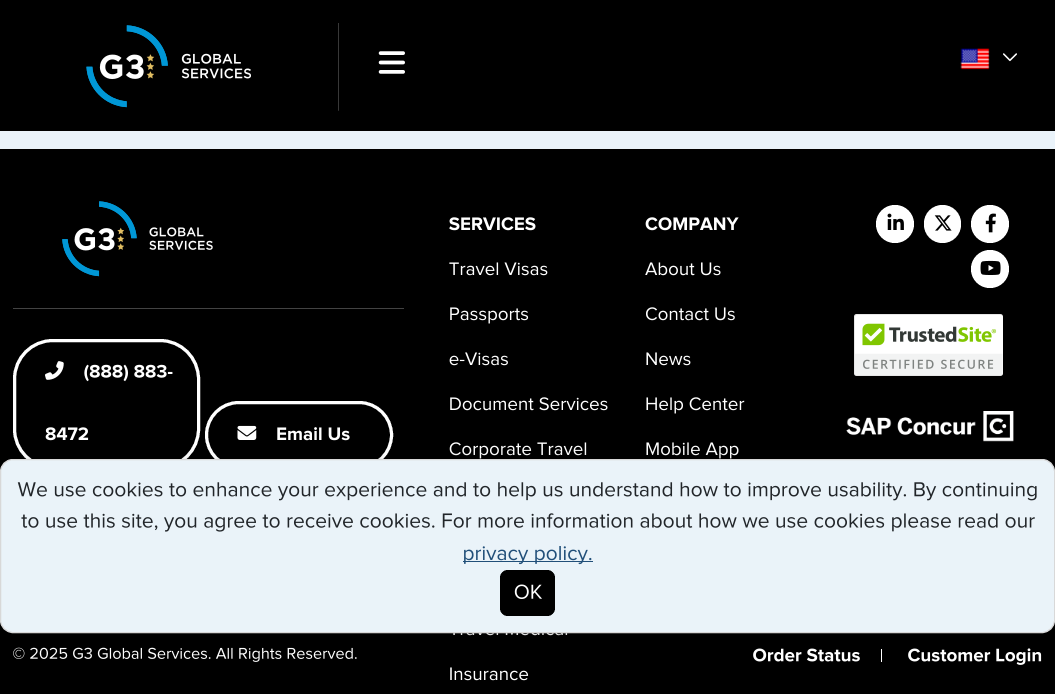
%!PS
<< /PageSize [1055 694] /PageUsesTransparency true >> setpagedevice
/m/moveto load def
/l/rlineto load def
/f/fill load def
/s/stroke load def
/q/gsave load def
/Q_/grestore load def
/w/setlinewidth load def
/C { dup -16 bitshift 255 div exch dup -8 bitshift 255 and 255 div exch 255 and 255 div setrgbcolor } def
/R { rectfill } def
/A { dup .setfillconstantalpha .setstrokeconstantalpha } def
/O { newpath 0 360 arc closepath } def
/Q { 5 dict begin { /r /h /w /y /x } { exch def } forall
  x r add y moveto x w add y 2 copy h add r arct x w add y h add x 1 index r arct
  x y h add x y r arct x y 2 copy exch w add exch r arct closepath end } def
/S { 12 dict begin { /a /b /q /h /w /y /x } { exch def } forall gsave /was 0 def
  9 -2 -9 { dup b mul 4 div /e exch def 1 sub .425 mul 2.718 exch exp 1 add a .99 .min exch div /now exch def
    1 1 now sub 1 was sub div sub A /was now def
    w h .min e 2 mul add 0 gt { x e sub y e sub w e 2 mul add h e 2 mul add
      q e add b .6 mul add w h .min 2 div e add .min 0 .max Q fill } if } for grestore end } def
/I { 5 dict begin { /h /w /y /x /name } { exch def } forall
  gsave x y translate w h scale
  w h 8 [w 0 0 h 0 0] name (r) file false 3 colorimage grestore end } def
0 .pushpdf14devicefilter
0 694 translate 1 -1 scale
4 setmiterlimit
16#EAF3FA C
0 0 1055 694 R
16#000000 C
0 0 1055 131 R
(1.rgb) 86 25 165 83 I
q
338 23 1 88 rectclip
16#4C4C4C C
1.2 w
2 setlinecap
338 23 m 0 87 l s
Q_
(2.rgb) 378 51 27 23 I
(3.rgb) 960 48 30 22 I
(4.rgb) 1003 53 14 9 I
0 149 1055 545 R
(5.rgb) 62 201 151 76 I
16#434343 C
13 308 391 1 R
16#FFFFFF C
3 w
14.5 340.5 184 127 38.5 Q s
(6.rgb) 45 361 19 19 I
(7.rgb) 84 364 89 18 I
(8.rgb) 45 427 44 14 I
206.5 402.5 185 65 32.5 Q s
(9.rgb) 237 425 20 15 I
(10.rgb) 277 427 73 14 I
(11.rgb) 449 217 87 14 I
(12.rgb) 449 262 99 14 I
(13.rgb) 450 307 79 17 I
(14.rgb) 449 352 59 14 I
(15.rgb) 450 397 158 14 I
(16.rgb) 449 442 138 17 I
(17.rgb) 453 633 115 3 I
(18.rgb) 450 667 79 14 I
(19.rgb) 645 217 94 14 I
(20.rgb) 645 262 76 14 I
(21.rgb) 646 307 89 14 I
(22.rgb) 646 352 45 14 I
(23.rgb) 646 397 99 17 I
(24.rgb) 646 442 93 17 I
895 224 19 O f
(25.rgb) 887 213 17 17 I
924 205 37 38 18.5 Q f
(26.rgb) 934 215 18 16 I
990 224 19 O f
(27.rgb) 985 213 11 20 I
990 269 19 O f
(28.rgb) 980 260 21 15 I
(29.rgb) 854 314 149 62 I
(30.rgb) 846 411 168 31 I
(31.rgb) 13 647 344 15 I
(32.rgb) 753 648 107 14 I
881 649 1 13 R
(33.rgb) 908 648 134 17 I
16#000000 C
0 463 1055 173 13 7 .2 S
16#EAF3F9 C
.5 459.5 1054 173 12.5 Q q f Q_
16#D8D8D8 C
1 w
s
(34.rgb) 17 482 1020 19 I
(35.rgb) 21 513 1014 19 I
16#214F79 C
463 561 130 1 R
(36.rgb) 464 546 128 19 I
16#000000 C
500 570 55 46 8 Q f
(37.rgb) 514 584 28 15 I
.poppdf14devicefilter showpage
